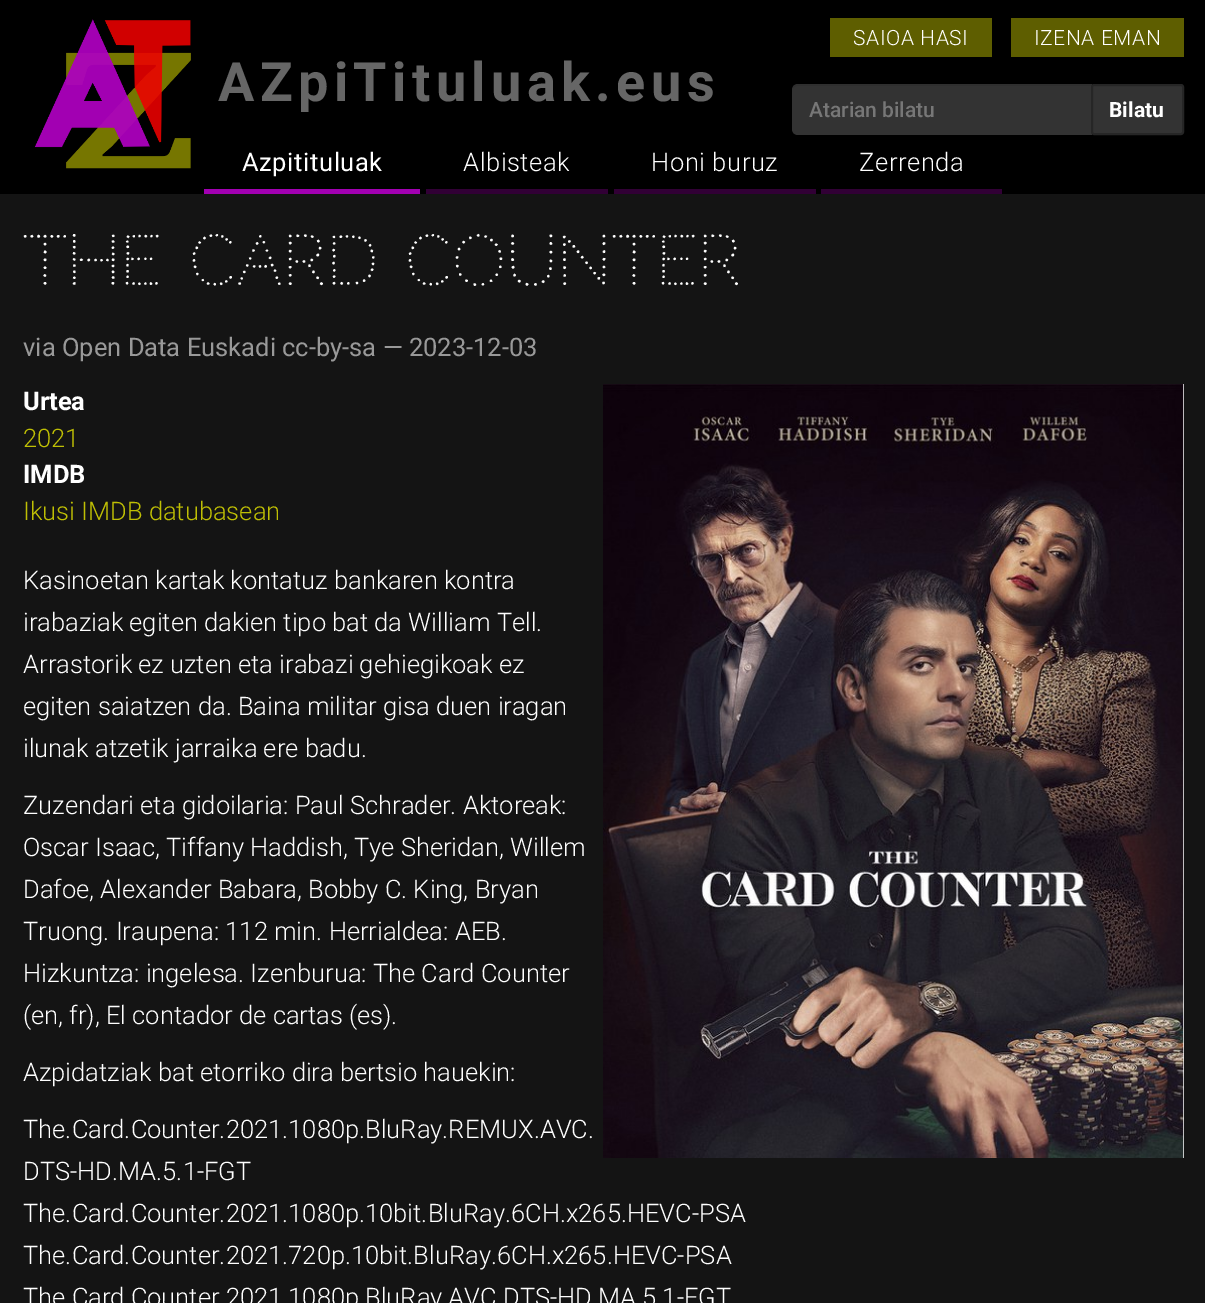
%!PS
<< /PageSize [1205 1303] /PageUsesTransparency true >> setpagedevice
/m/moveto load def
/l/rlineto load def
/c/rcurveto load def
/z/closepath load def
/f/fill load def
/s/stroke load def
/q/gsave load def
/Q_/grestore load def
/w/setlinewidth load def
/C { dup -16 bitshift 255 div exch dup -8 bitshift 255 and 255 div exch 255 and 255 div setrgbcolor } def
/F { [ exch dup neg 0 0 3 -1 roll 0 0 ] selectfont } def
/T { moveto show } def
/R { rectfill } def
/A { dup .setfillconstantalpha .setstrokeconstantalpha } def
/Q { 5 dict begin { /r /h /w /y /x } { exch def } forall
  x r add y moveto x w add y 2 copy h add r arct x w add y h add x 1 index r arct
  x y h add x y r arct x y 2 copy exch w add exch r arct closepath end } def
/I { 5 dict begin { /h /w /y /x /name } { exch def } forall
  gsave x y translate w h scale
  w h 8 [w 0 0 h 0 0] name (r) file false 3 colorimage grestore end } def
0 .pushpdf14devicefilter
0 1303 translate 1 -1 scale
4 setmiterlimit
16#141414 C
0 0 1205 1303 R
16#000000 C
0 0 1205 194 R
(1.rgb) 34 19 157 150 I
16#5E5E00 C
830 18 162 39 R
/Roboto-Light 21 F
16#FFFFFF C
853 45 m .6 0 (SAIOA HASI) ashow
16#5E5E00 C
1011 18 173 39 R
16#FFFFFF C
1034 45 m .6 0 (IZENA EMAN) ashow
/Roboto-Bold 54 F
16#666666 C
218 101 m 5.4 0 (AZpiTituluak.eus) ashow
16#333333 C
798 84 m 294 0 l 0 51 l -294 0 l -3.5 0 -6 -2.5 -6 -6 c 0 -39 l 0 -3.5 2.5 -6 6 -6 c z f
0.07 A
16#000000 C
798 86 m 294 0 l 0 -2 l -295 0 l -4 1 -5 5 -5 8 c 0 -4 3 -6 6 -6 c z f
/Roboto-Medium 21 F
1 A
16#777777 C
(Atarian bilatu) 809 117 T
16#333333 C
1092 85 91 49 2 Q q f Q_
16#262626 C
2 w
s
/Roboto-Bold 21 F
16#FFFFFF C
(Bilatu) 1109 117 T
16#A200B2 C
204 189 216 5 R
/Roboto-Regular 25.5 F
16#FFFFFF C
242 171 m .6 0 (Azpitituluak) ashow
16#310035 C
426 189 182 5 R
/Roboto-Light 25.5 F
16#FFFFFF C
463 171 m .6 0 (Albisteak) ashow
16#310035 C
614 189 202 5 R
16#FFFFFF C
651 171 m .6 0 (Honi buruz) ashow
16#310035 C
821 189 181 5 R
16#FFFFFF C
859 171 m .6 0 (Zerrenda) ashow
/Codystar-Regular 67.5 F
(The Card Counter) 23 284 T
/Roboto-Regular 25.5 F
16#999999 C
(via Open Data Euskadi cc-by-sa — 2023-12-03) 23 356 T
/Roboto-Bold 25.5 F
16#FFFFFF C
(Urtea) 23 410 T
/Roboto-Light 25.5 F
16#BFBF04 C
(2021) 23 447 T
/Roboto-Bold 25.5 F
16#FFFFFF C
(IMDB) 23 483 T
/Roboto-Light 25.5 F
16#BFBF04 C
(Ikusi IMDB datubasean) 23 520 T
16#FFFFFF C
(Kasinoetan kartak kontatuz bankaren kontra) 23 589 T
(irabaziak egiten dakien tipo bat da William Tell.) 23 631 T
(Arrastorik ez uzten eta irabazi gehiegikoak ez) 23 673 T
(egiten saiatzen da. Baina militar gisa duen iragan) 23 715 T
(ilunak atzetik jarraika ere badu.) 23 757 T
(Zuzendari eta gidoilaria: Paul Schrader. Aktoreak:) 23 814 T
(Oscar Isaac, Tiffany Haddish, Tye Sheridan, Willem) 23 856 T
(Dafoe, Alexander Babara, Bobby C. King, Bryan) 23 898 T
(Truong. Iraupena: 112 min. Herrialdea: AEB.) 23 940 T
(Hizkuntza: ingelesa. Izenburua: The Card Counter) 23 982 T
(\(en, fr\), El contador de cartas \(es\).) 23 1024 T
(Azpidatziak bat etorriko dira bertsio hauekin:) 23 1081 T
(The.Card.Counter.2021.1080p.BluRay.REMUX.AVC.) 23 1138 T
(DTS-HD.MA.5.1-FGT) 23 1180 T
(The.Card.Counter.2021.1080p.10bit.BluRay.6CH.x265.HEVC-PSA) 23 1222 T
(The.Card.Counter.2021.720p.10bit.BluRay.6CH.x265.HEVC-PSA) 23 1264 T
(The.Card.Counter.2021.1080p.BluRay.AVC.DTS-HD.MA.5.1-FGT) 23 1306 T
16#FAFAFA C
1183 384 1 774 R
(2.rgb) 603 384 581 774 I
.poppdf14devicefilter showpage
